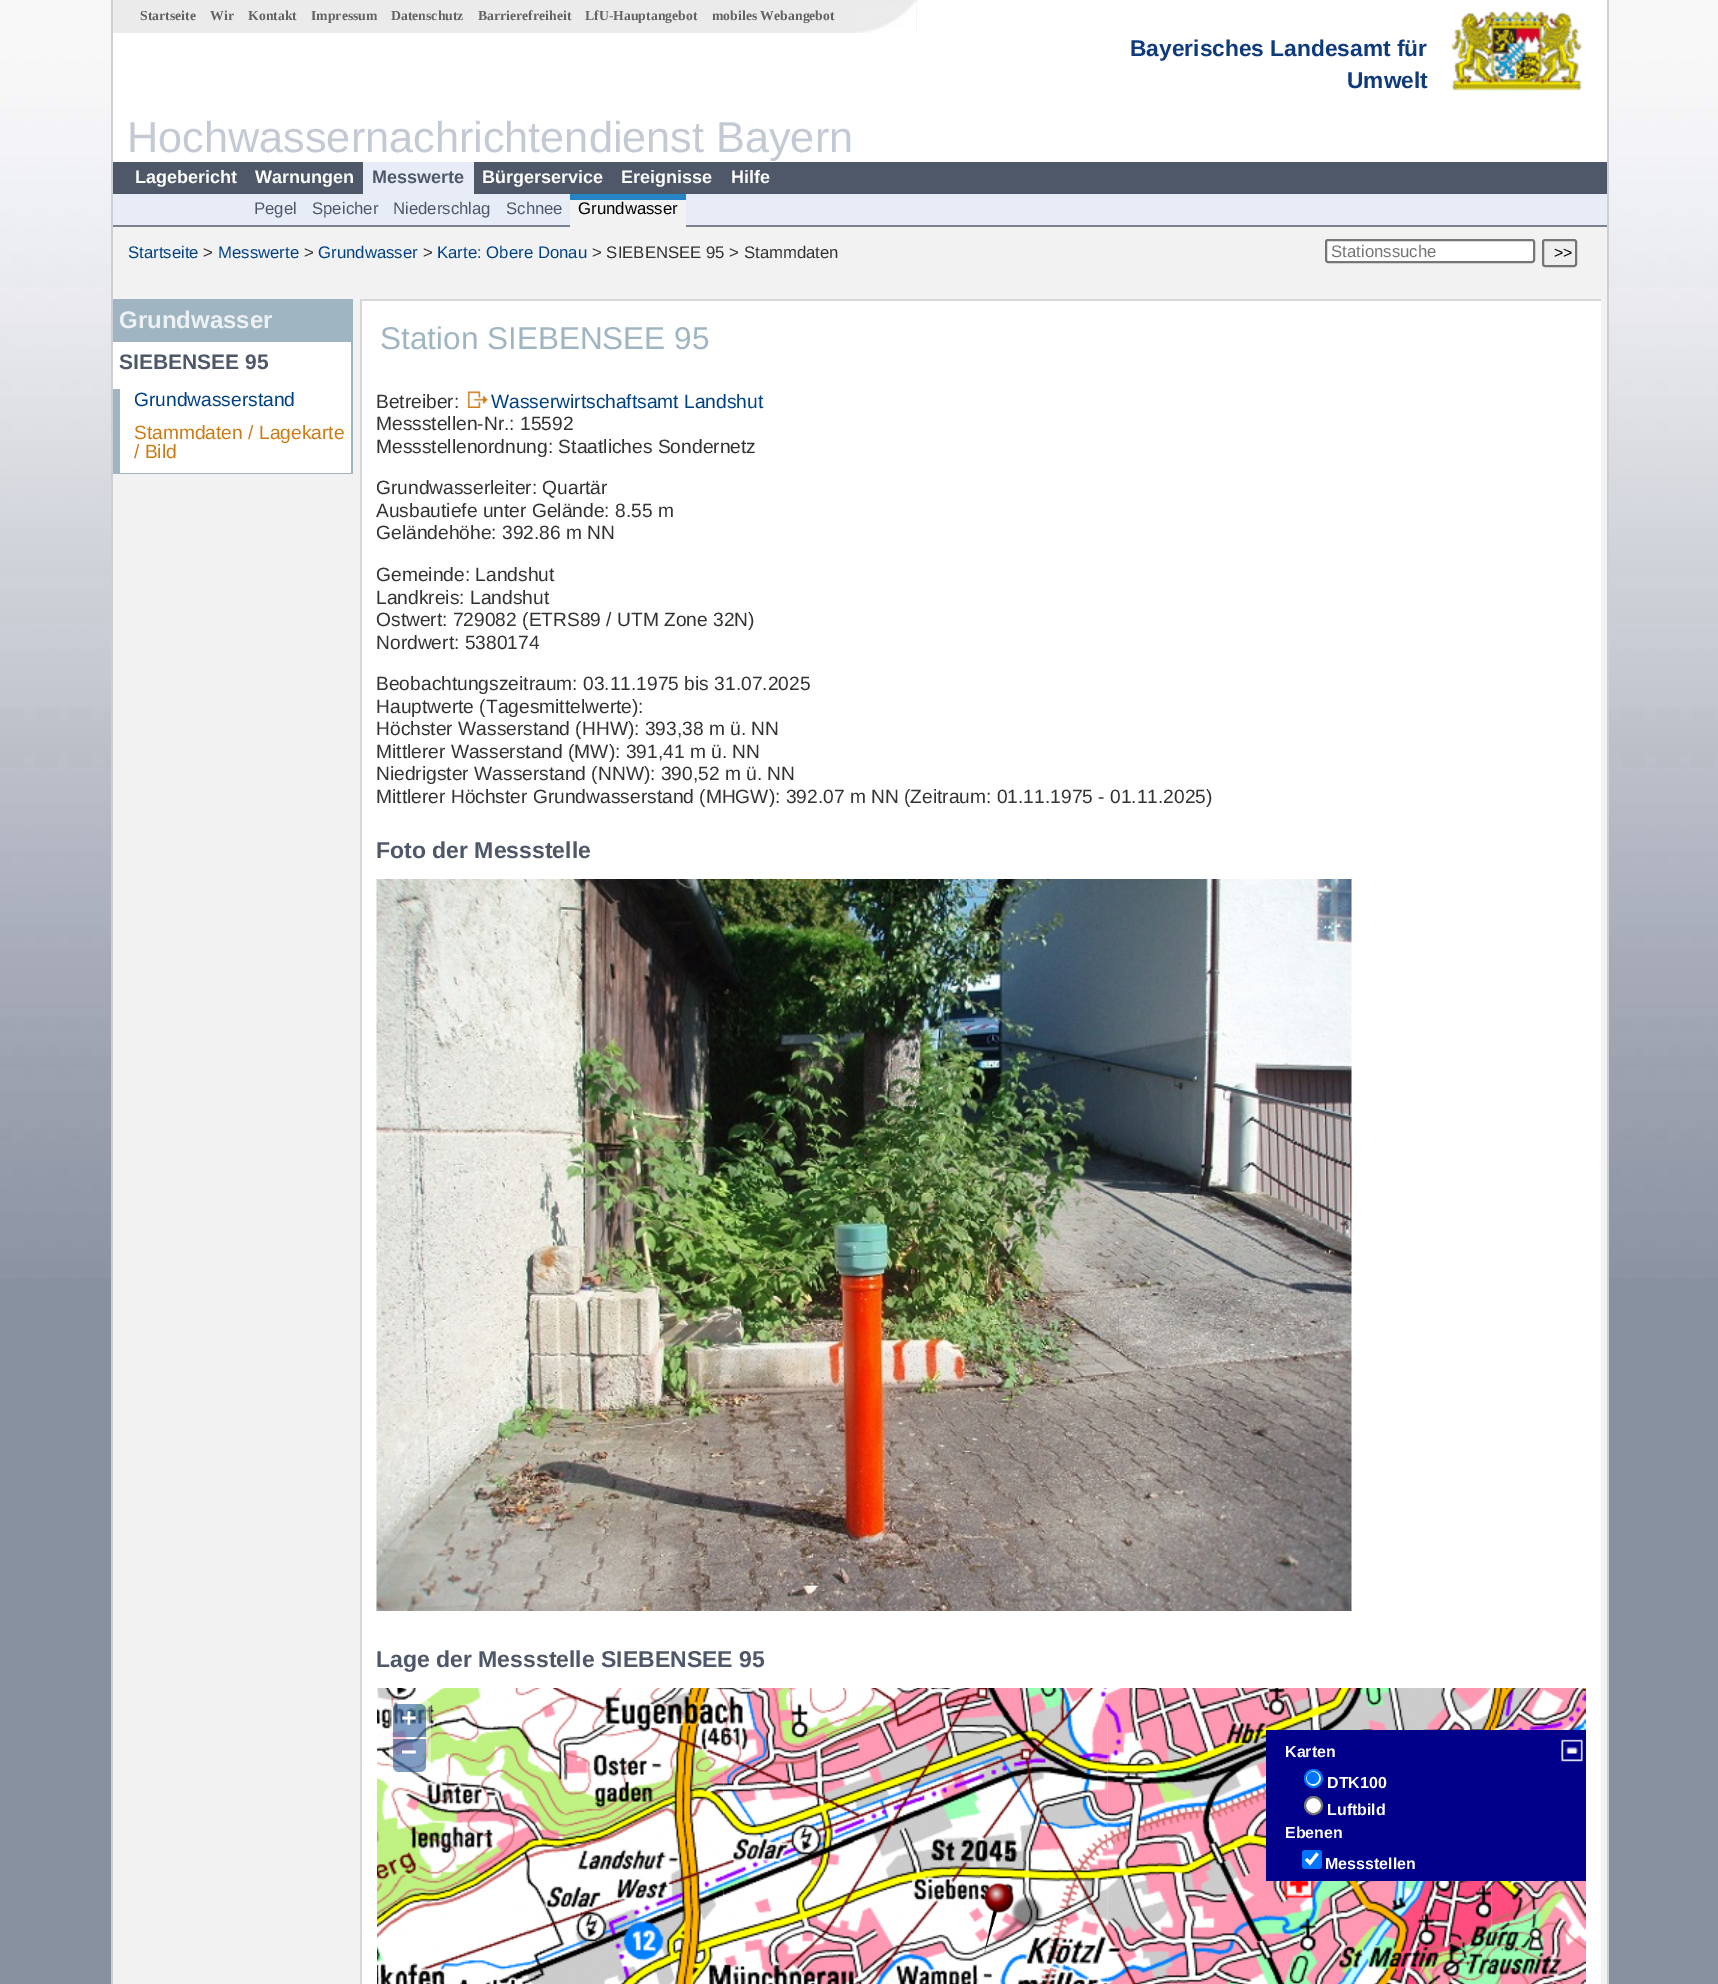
%!PS
<< /PageSize [1718 1984] /PageUsesTransparency true >> setpagedevice
/m/moveto load def
/l/rlineto load def
/c/rcurveto load def
/z/closepath load def
/f/fill load def
/s/stroke load def
/q/gsave load def
/Q_/grestore load def
/w/setlinewidth load def
/C { dup -16 bitshift 255 div exch dup -8 bitshift 255 and 255 div exch 255 and 255 div setrgbcolor } def
/F { [ exch dup neg 0 0 3 -1 roll 0 0 ] selectfont } def
/T { moveto show } def
/R { rectfill } def
/A { dup .setfillconstantalpha .setstrokeconstantalpha } def
/O { newpath 0 360 arc closepath } def
/Q { 5 dict begin { /r /h /w /y /x } { exch def } forall
  x r add y moveto x w add y 2 copy h add r arct x w add y h add x 1 index r arct
  x y h add x y r arct x y 2 copy exch w add exch r arct closepath end } def
/I { 5 dict begin { /h /w /y /x /name } { exch def } forall
  gsave x y translate w h scale
  w h 8 [w 0 0 h 0 0] name (r) file false 3 colorimage grestore end } def
0 .pushpdf14devicefilter
0 1984 translate 1 -1 scale
4 setmiterlimit
16#8891A0 C
0 0 1718 1984 R
(1.rgb) 0 0 1718 1278 I
16#FFFFFF C
113 0 1494 162 R
16#CECFD4 C
1607 0 2 1984 R
111 0 2 1984 R
(2.rgb) 1451 11 131 80 I
16#EBEBEB C
113 0 804 33 R
(3.rgb) 856 0 61 33 I
/LiberationSerif-Bold 13.75 F
16#636363 C
(Startseite) 140 20 T
(Wir) 210 20 T
(Kontakt) 248 20 T
(Impressum) 311 20 T
(Datenschutz) 391 20 T
(Barrierefreiheit) 478 20 T
(LfU-Hauptangebot) 585 20 T
(mobiles Webangebot) 712 20 T
/LiberationSans-Bold 22.75 F
16#0F3B7C C
(Bayerisches Landesamt für) 1130 56 T
(Umwelt) 1347 88 T
/LiberationSans-Regular 43.25 F
16#C3CAD4 C
(Hochwassernachrichtendienst Bayern) 127 152 T
16#4F5869 C
113 162 1494 32 R
/LiberationSans-Bold 18 F
16#FFFFFF C
(Lagebericht) 135 183 T
(Warnungen) 255 183 T
16#E7ECF7 C
363 162 111 32 R
16#4F5869 C
(Messwerte) 372 183 T
16#FFFFFF C
(Bürgerservice) 482 183 T
(Ereignisse) 621 183 T
(Hilfe) 731 183 T
16#E7ECF7 C
113 194 1494 31 R
16#7A8291 C
113 225 1494 2 R
/LiberationSans-Regular 16.75 F
16#4F5869 C
(Pegel) 254 214 T
(Speicher) 312 214 T
(Niederschlag) 393 214 T
(Schnee) 506 214 T
16#F2F2F2 C
570 200 116 27 R
16#2484C6 C
570 194 116 6 R
16#000000 C
(Grundwasser) 578 214 T
16#F2F2F2 C
113 227 1494 1757 R
16#004185 C
(Startseite) 128 258 T
16#333333 C
(>) 203 258 T
16#004185 C
(Messwerte) 218 258 T
16#333333 C
(>) 304 258 T
16#004185 C
(Grundwasser) 318 258 T
16#333333 C
(>) 423 258 T
16#004185 C
(Karte: Obere Donau) 437 258 T
16#333333 C
(> SIEBENSEE 95 > Stammdaten) 592 258 T
16#FFFFFF C
1326 240 208 22 2 Q q f Q_
16#767676 C
2 w
s
16#757575 C
(Stationssuche) 1331 257 T
16#EFEFEF C
1543 240 33 26 2 Q q f Q_
16#767676 C
s
/LiberationSans-Regular 16 F
16#000000 C
(>>) 1554 258 T
16#FFFFFF C
113 342 238 131 R
16#9FB5C1 C
113 299 240 1 R
351 299 2 175 R
113 473 240 1 R
113 300 238 42 R
/LiberationSans-Bold 24 F
16#EDF1F3 C
(Grundwasser) 119 328 T
/LiberationSans-Bold 21 F
16#4F5869 C
(SIEBENSEE 95) 119 369 T
16#9FB5C1 C
113 389 7 84 R
/LiberationSans-Regular 19.2 F
16#004185 C
(Grundwasserstand) 134 406 T
16#CC7B17 C
(Stammdaten / Lagekarte) 134 439 T
(/ Bild) 134 458 T
16#FFFFFF C
362 301 1239 1683 R
16#D7D7D7 C
360 299 1241 2 R
360 299 2 1685 R
/LiberationSans-Regular 31.5 F
16#9FB5C1 C
(Station SIEBENSEE 95) 380 349 T
/LiberationSans-Regular 19.2 F
16#333333 C
(Betreiber:) 376 408 T
(4.rgb) 467 391 21 17 I
16#004185 C
(Wasserwirtschaftsamt Landshut) 491 408 T
16#333333 C
(Messstellen-Nr.: 15592) 376 430 T
(Messstellenordnung: Staatliches Sondernetz) 376 453 T
(Grundwasserleiter: Quartär) 376 494 T
(Ausbautiefe unter Gelände: 8.55 m) 376 517 T
(Geländehöhe: 392.86 m NN) 376 539 T
(Gemeinde: Landshut) 376 581 T
(Landkreis: Landshut) 376 604 T
(Ostwert: 729082 \(ETRS89 / UTM Zone 32N\)) 376 626 T
(Nordwert: 5380174) 376 649 T
(Beobachtungszeitraum: 03.11.1975 bis 31.07.2025) 376 690 T
(Hauptwerte \(Tagesmittelwerte\):) 376 713 T
(Höchster Wasserstand \(HHW\): 393,38 m ü. NN) 376 735 T
(Mittlerer Wasserstand \(MW\): 391,41 m ü. NN) 376 758 T
(Niedrigster Wasserstand \(NNW\): 390,52 m ü. NN) 376 780 T
(Mittlerer Höchster Grundwasserstand \(MHGW\): 392.07 m NN \(Zeitraum: 01.11.1975 - 01.11.2025\)) 376 803 T
/LiberationSans-Bold 23 F
16#4F5869 C
(Foto der Messstelle) 376 858 T
(5.rgb) 376 879 976 732 I
(Lage der Messstelle SIEBENSEE 95) 376 1667 T
(6.rgb) 377 1688 346 296 I
(7.rgb) 723 1688 384 296 I
(8.rgb) 1106 1688 385 296 I
(9.rgb) 1490 1688 96 296 I
(10.rgb) 984 1883 60 71 I
0.4 A
16#FFFFFF C
389 1700 42 76 6 Q f
0.5 A
16#003C88 C
399 1704 m 21 0 l 3.5 0 6 2.5 6 6 c 0 27 l -33 0 l 0 -27 l 0 -3.5 2.5 -6 6 -6 c z f
/LiberationSans-Bold 27 F
1 A
16#FFFFFF C
(+) 401 1727 T
0.5 A
16#003C88 C
393 1739 m 33 0 l 0 27 l 0 3.5 -2.5 6 -6 6 c -21 0 l -3.5 0 -6 -2.5 -6 -6 c z f
1 A
16#FFFFFF C
(−) 401 1761 T
16#00008B C
1266 1730 320 151 R
/LiberationSans-Bold 16 F
16#FFFFFF C
(Karten) 1285 1757 T
1313.5 1778.5 8.5 O q f Q_
16#0075FF C
s
1313 1778 6 O f
16#FFFFFF C
(DTK100) 1327 1788 T
1313.5 1805.5 8.5 O q f Q_
16#767676 C
s
16#FFFFFF C
(Luftbild) 1327 1815 T
(Ebenen) 1285 1838 T
16#0075FF C
1302 1850 20 19 3 Q f
16#FFFFFF C
3.1 w
1306 1859 m 4 4 l 7.5 -9.5 l s
(Messstellen) 1325 1869 T
(11.rgb) 1561 1739 22 23 I
.poppdf14devicefilter showpage
